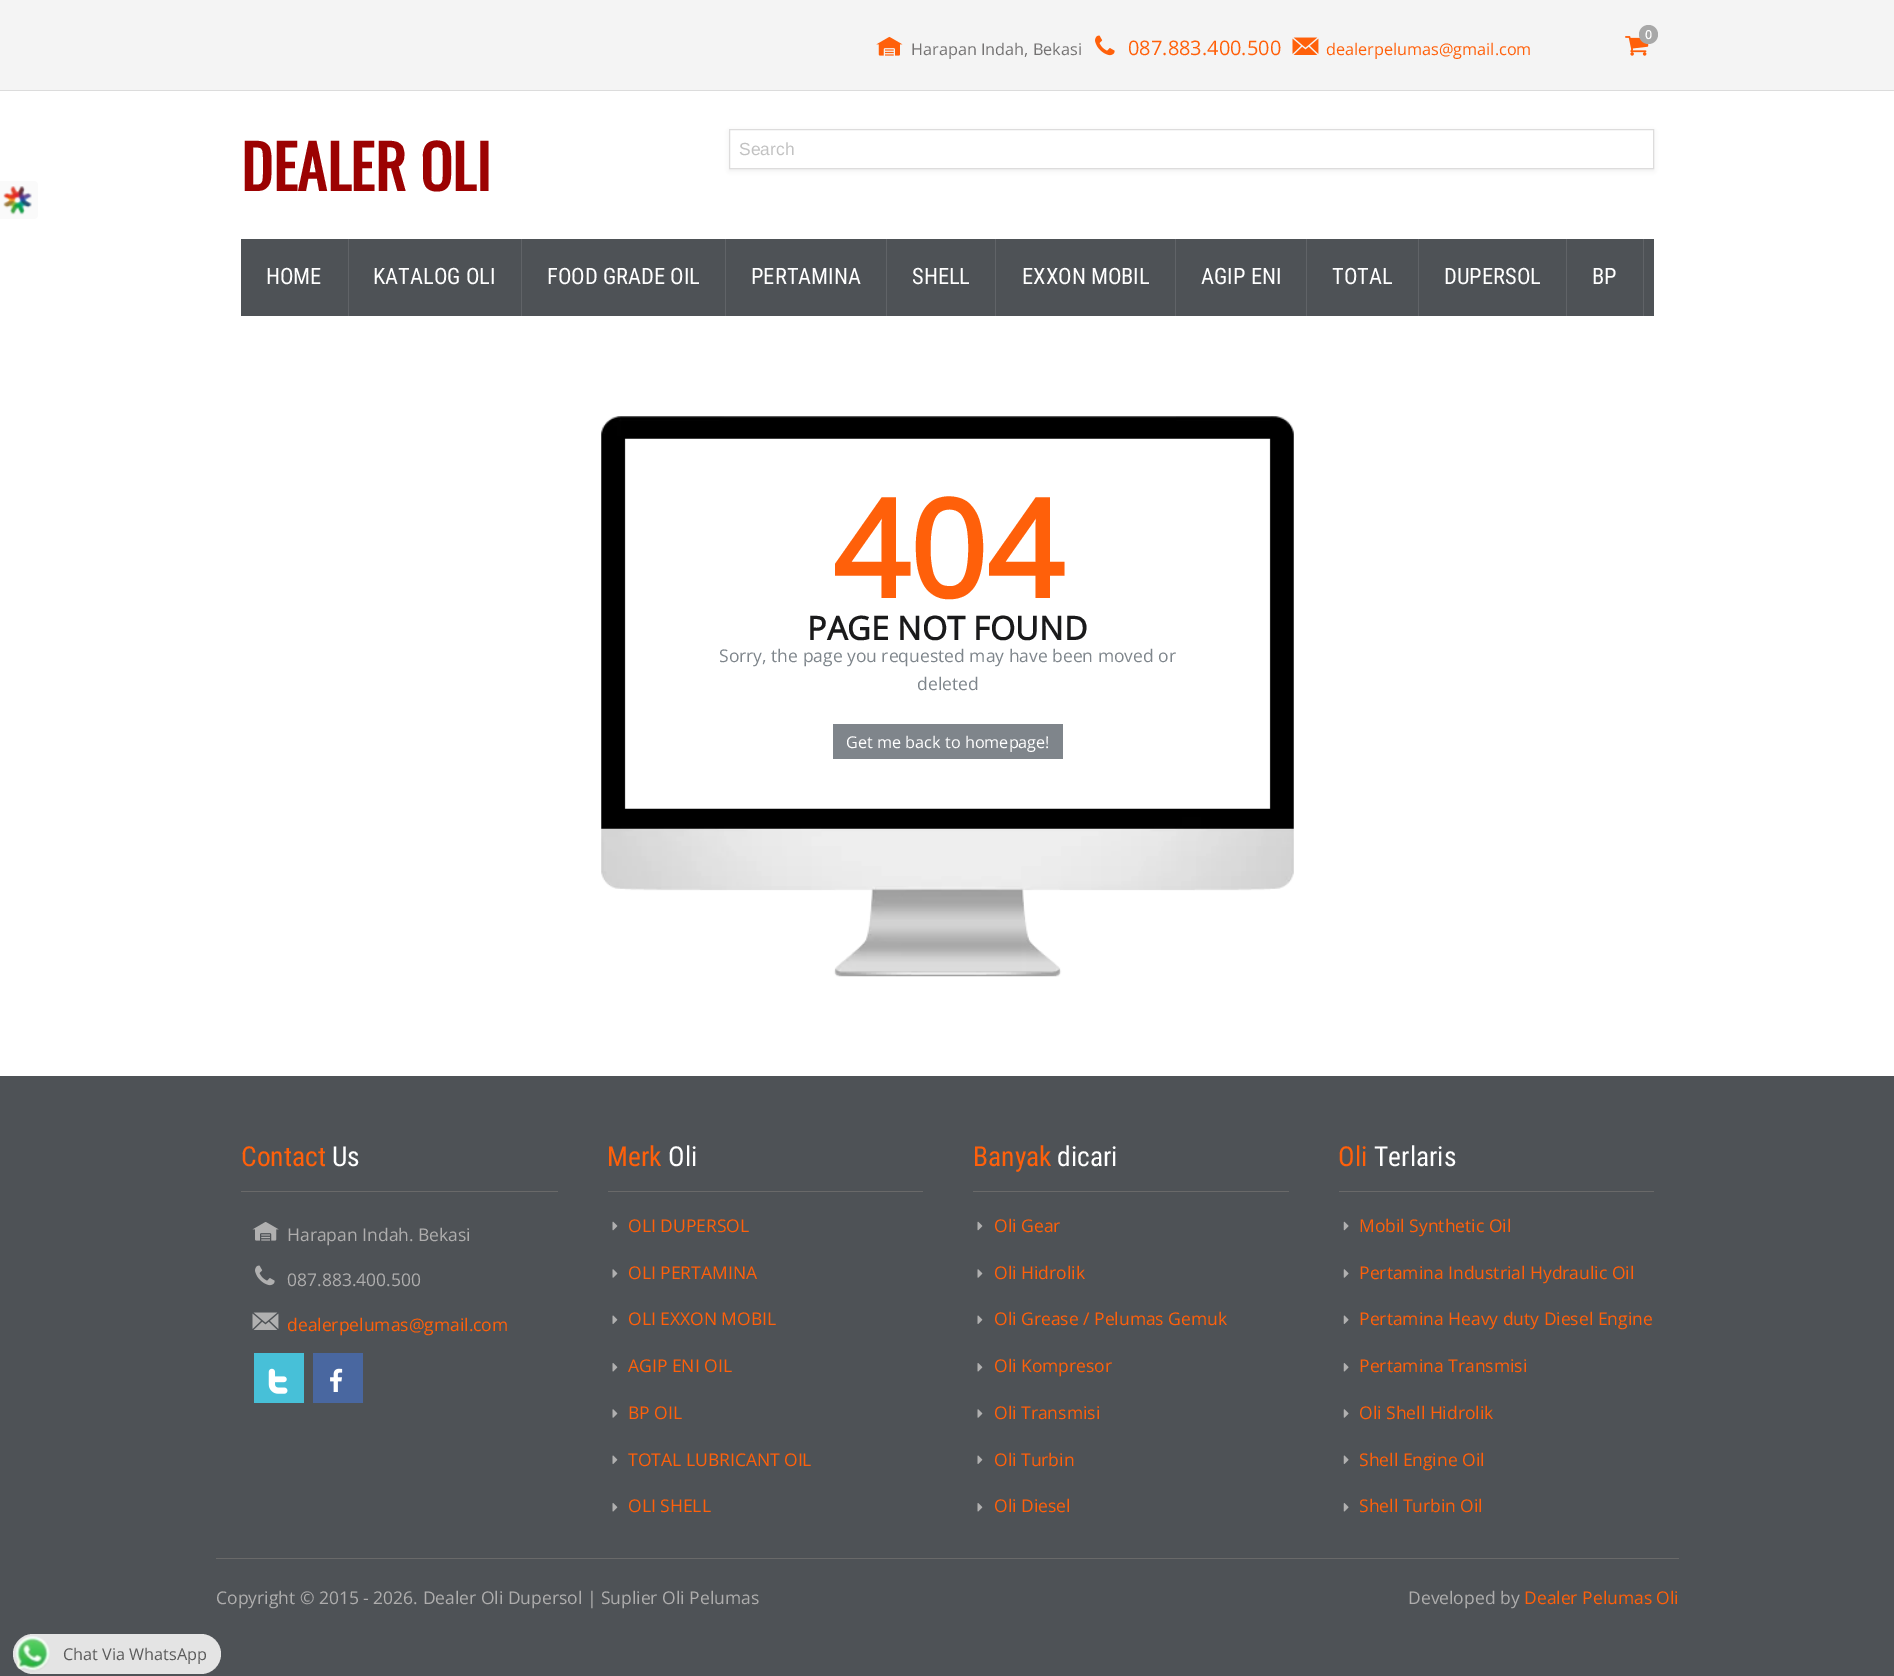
%!PS
<< /PageSize [1894 1676] /PageUsesTransparency true >> setpagedevice
/m/moveto load def
/l/rlineto load def
/c/rcurveto load def
/z/closepath load def
/f/fill load def
/s/stroke load def
/q/gsave load def
/Q_/grestore load def
/C { dup -16 bitshift 255 div exch dup -8 bitshift 255 and 255 div exch 255 and 255 div setrgbcolor } def
/F { [ exch dup neg 0 0 3 -1 roll 0 0 ] selectfont } def
/T { moveto show } def
/R { rectfill } def
/A { dup .setfillconstantalpha .setstrokeconstantalpha } def
/O { newpath 0 360 arc closepath } def
/Q { 5 dict begin { /r /h /w /y /x } { exch def } forall
  x r add y moveto x w add y 2 copy h add r arct x w add y h add x 1 index r arct
  x y h add x y r arct x y 2 copy exch w add exch r arct closepath end } def
/S { 12 dict begin { /a /b /q /h /w /y /x } { exch def } forall gsave /was 0 def
  9 -2 -9 { dup b mul 4 div /e exch def 1 sub .425 mul 2.718 exch exp 1 add a .99 .min exch div /now exch def
    1 1 now sub 1 was sub div sub A /was now def
    w h .min e 2 mul add 0 gt { x e sub y e sub w e 2 mul add h e 2 mul add
      q e add b .6 mul add w h .min 2 div e add .min 0 .max Q fill } if } for grestore end } def
/I { 5 dict begin { /h /w /y /x /name } { exch def } forall
  gsave x y translate w h scale
  w h 8 [w 0 0 h 0 0] name (r) file false 3 colorimage grestore end } def
0 .pushpdf14devicefilter
0 1676 translate 1 -1 scale
4 setmiterlimit
16#FFFFFF C
0 0 1894 1676 R
16#FAFAFA C
-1 181 m 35 0 l 2 0 4 2 4 4 c 0 30 l 0 2 -2 4 -4 4 c -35 0 l z f
(1.rgb) 3 186 29 29 I
16#F4F4F4 C
0 0 1894 90 R
16#DCDCDC C
0 90 1894 1 R
(2.rgb) 1625 36 24 20 I
16#A8A8A8 C
1648.5 34.5 9.5 O f
/OpenSans-Bold 12 F
16#FFFFFF C
(0) 1645 39 T
(3.rgb) 876 36 27 20 I
/OpenSans-Regular 16.25 F
16#757373 C
(Harapan Indah, Bekasi) 911 55 T
(4.rgb) 1095 35 20 21 I
/OpenSans-Regular 20 F
16#FF600A C
(087.883.400.500) 1128 55 T
(5.rgb) 1292 37 27 18 I
/OpenSans-Regular 16.25 F
(dealerpelumas@gmail.com) 1326 55 T
/Oswald-Bold 60 F
16#9C0202 C
(DEALER OLI) 241 191 T
16#646464 C
729 131 925 40 0 2 .1 S
16#FFFFFF C
729.5 129.5 m 924 0 l 0 39 l -924 0 l z q f Q_
16#DDDCDC C
s
/LiberationSans-Regular 17.5 F
16#C2C2C2 C
(Search) 739 155 T
16#4E5256 C
241 239 1413 77 R
16#606367 C
348 239 1 77 R
/RobotoCondensed-Regular 22.5 F
16#FFFFFF C
(HOME) 266 284 T
16#606367 C
521 239 1 77 R
16#FFFFFF C
(KATALOG OLI) 373 284 T
16#606367 C
725 239 1 77 R
16#FFFFFF C
(FOOD GRADE OIL) 547 284 T
16#606367 C
886 239 1 77 R
16#FFFFFF C
(PERTAMINA) 751 284 T
16#606367 C
995 239 1 77 R
16#FFFFFF C
(SHELL) 912 284 T
16#606367 C
1175 239 1 77 R
16#FFFFFF C
(EXXON MOBIL) 1022 284 T
16#606367 C
1306 239 1 77 R
16#FFFFFF C
(AGIP ENI) 1201 284 T
16#606367 C
1418 239 1 77 R
16#FFFFFF C
(TOTAL) 1332 284 T
16#606367 C
1566 239 1 77 R
16#FFFFFF C
(DUPERSOL) 1444 284 T
16#606367 C
1643 239 1 77 R
16#FFFFFF C
(BP) 1592 284 T
(6.rgb) 601 416 693 561 I
/OpenSans-Bold 135 F
16#FF600A C
(404) 832 598 T
/OpenSans-Bold 32.5 F
16#1A1A1B C
(PAGE NOT FOUND) 807 640 T
/OpenSans-Regular 17.5 F
16#7E858B C
(Sorry, the page you requested may have been moved or) 719 662 T
(deleted) 917 690 T
16#7F858B C
833 724 230 35 R
/OpenSans-Regular 16.25 F
16#FFFFFF C
(Get me back to homepage!) 846 748 T
16#4E5256 C
0 1076 1894 600 R
16#696969 C
241 1191 317 1 R
/RobotoCondensed-Regular 27.5 F
16#FF600A C
(Contact) 241 1166 T
16#FFFFFF C
(Us) 332 1166 T
(7.rgb) 252 1222 27 19 I
/OpenSans-Regular 17.5 F
16#AEADAD C
(Harapan Indah. Bekasi) 287 1241 T
(8.rgb) 255 1265 20 21 I
(087.883.400.500) 287 1286 T
(9.rgb) 252 1312 27 18 I
16#FF600A C
(dealerpelumas@gmail.com) 287 1331 T
16#47C0D8 C
254 1353 50 50 R
(10.rgb) 268 1368 20 26 I
16#4967A0 C
313 1353 50 50 R
(11.rgb) 330 1368 13 24 I
16#696969 C
608 1191 315 1 R
/RobotoCondensed-Regular 27.5 F
16#FF600A C
(Merk) 607 1166 T
16#FFFFFF C
(Oli) 668 1166 T
(12.rgb) 612 1221 6 10 I
/OpenSans-Regular 17.5 F
16#FF600A C
(OLI DUPERSOL) 628 1232 T
(13.rgb) 612 1269 6 9 I
(OLI PERTAMINA) 628 1279 T
(14.rgb) 612 1315 6 9 I
(OLI EXXON MOBIL) 628 1325 T
(15.rgb) 612 1363 6 9 I
(AGIP ENI OIL) 628 1372 T
(13.rgb) 612 1409 6 9 I
(BP OIL) 628 1419 T
(14.rgb) 612 1455 6 9 I
(TOTAL LUBRICANT OIL) 628 1466 T
(15.rgb) 612 1503 6 9 I
(OLI SHELL) 628 1512 T
16#696969 C
973 1191 316 1 R
/RobotoCondensed-Regular 27.5 F
16#FF600A C
(Banyak) 973 1166 T
16#FFFFFF C
(dicari) 1057 1166 T
(12.rgb) 977 1221 6 10 I
/OpenSans-Regular 17.5 F
16#FF600A C
(Oli Gear) 994 1232 T
(13.rgb) 977 1269 6 9 I
(Oli Hidrolik) 994 1279 T
(14.rgb) 977 1315 6 9 I
(Oli Grease / Pelumas Gemuk) 994 1325 T
(15.rgb) 977 1363 6 9 I
(Oli Kompresor) 994 1372 T
(13.rgb) 977 1409 6 9 I
(Oli Transmisi) 994 1419 T
(14.rgb) 977 1455 6 9 I
(Oli Turbin) 994 1466 T
(15.rgb) 977 1503 6 9 I
(Oli Diesel) 994 1512 T
16#696969 C
1339 1191 315 1 R
/RobotoCondensed-Regular 27.5 F
16#FF600A C
(Oli) 1338 1166 T
16#FFFFFF C
(Terlaris) 1374 1166 T
(16.rgb) 1343 1221 6 10 I
/OpenSans-Regular 17.5 F
16#FF600A C
(Mobil Synthetic Oil) 1359 1232 T
(17.rgb) 1343 1269 6 9 I
(Pertamina Industrial Hydraulic Oil) 1359 1279 T
(18.rgb) 1343 1315 6 9 I
(Pertamina Heavy duty Diesel Engine) 1359 1325 T
(19.rgb) 1343 1363 6 9 I
(Pertamina Transmisi) 1359 1372 T
(17.rgb) 1343 1409 6 9 I
(Oli Shell Hidrolik) 1359 1419 T
(18.rgb) 1343 1455 6 9 I
(Shell Engine Oil) 1359 1466 T
(19.rgb) 1343 1503 6 9 I
(Shell Turbin Oil) 1359 1512 T
16#696969 C
216 1558 1463 1 R
16#AEADAD C
(Copyright © 2015 - 2026. Dealer Oli Dupersol | Suplier Oli Pelumas) 216 1604 T
(Developed by) 1408 1604 T
16#FF600A C
(Dealer Pelumas Oli) 1524 1604 T
16#E4E4E4 C
13 1634 208 40 20 Q f
(20.rgb) 15 1636 35 36 I
/OpenSans-Regular 16.25 F
16#5B5B5B C
(Chat Via WhatsApp) 63 1660 T
.poppdf14devicefilter showpage
